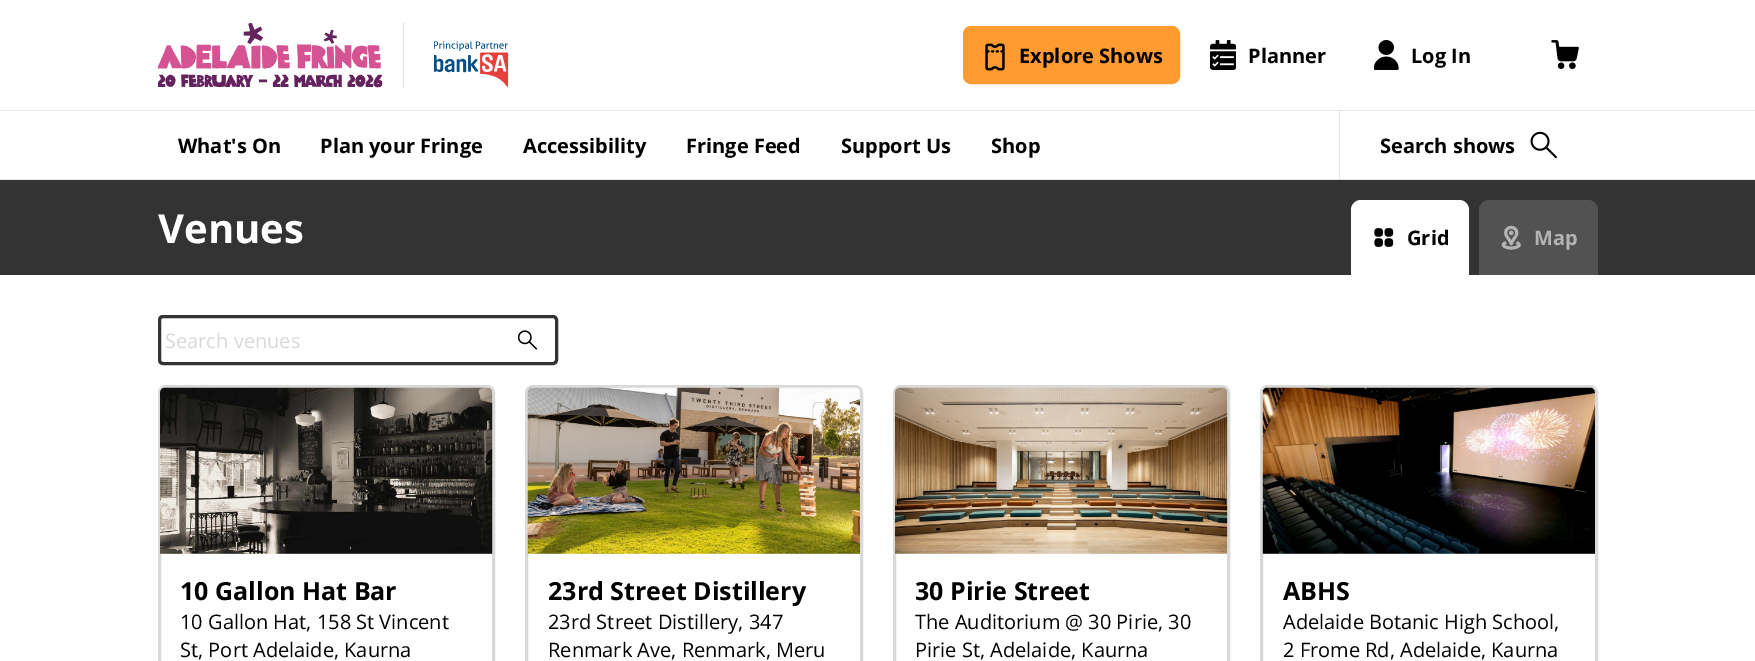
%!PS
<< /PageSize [1755 661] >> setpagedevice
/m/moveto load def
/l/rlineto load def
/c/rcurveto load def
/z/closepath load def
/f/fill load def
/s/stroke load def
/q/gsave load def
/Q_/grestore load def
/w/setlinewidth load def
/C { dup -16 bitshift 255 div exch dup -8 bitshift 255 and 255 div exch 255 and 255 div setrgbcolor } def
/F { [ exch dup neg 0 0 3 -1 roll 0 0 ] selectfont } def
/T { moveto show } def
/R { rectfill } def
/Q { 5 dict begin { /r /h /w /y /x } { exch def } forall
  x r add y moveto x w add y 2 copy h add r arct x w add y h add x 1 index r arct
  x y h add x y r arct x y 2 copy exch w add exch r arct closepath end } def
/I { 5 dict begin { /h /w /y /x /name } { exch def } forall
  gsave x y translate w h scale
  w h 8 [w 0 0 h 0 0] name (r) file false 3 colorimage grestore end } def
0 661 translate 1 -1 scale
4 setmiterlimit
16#FFFFFF C
0 0 1755 661 R
(1.rgb) 158 23 225 65 I
16#DDDDDD C
403 23 1 65 R
(2.rgb) 434 41 75 46 I
16#FF9B30 C
964.5 27.5 214 55 6.5 Q q f Q_
3 w
s
(3.rgb) 985 43 20 28 I
/OpenSans-Bold 20 F
16#000000 C
(Explore Shows) 1019 63 T
(4.rgb) 1210 40 26 30 I
(Planner) 1248 63 T
(5.rgb) 1374 40 25 30 I
(Log In) 1411 63 T
(6.rgb) 1551 40 28 30 I
16#E6E6E6 C
0 110 1755 1 R
0 179 1755 1 R
16#000000 C
(What's On) 178 153 T
(Plan your Fringe) 320 153 T
(Accessibility) 523 153 T
(Fringe Feed) 686 153 T
(Support Us) 841 153 T
(Shop) 991 153 T
16#E6E6E6 C
1339 110 1 70 R
16#000000 C
(Search shows) 1380 153 T
(7.rgb) 1530 131 27 28 I
16#333333 C
0 180 1755 95 R
/OpenSans-Bold 40 F
16#FFFFFF C
(Venues) 158 243 T
1361 200 m 98 0 l 5.5 0 10 4.5 10 10 c 0 65 l -118 0 l 0 -65 l 0 -5.5 4.5 -10 10 -10 c z f
(8.rgb) 1374 228 20 19 I
/OpenSans-Bold 20 F
16#000000 C
(Grid) 1407 245 T
16#525252 C
1489 200 m 99 0 l 5.5 0 10 4.5 10 10 c 0 65 l -119 0 l 0 -65 l 0 -5.5 4.5 -10 10 -10 c z f
(9.rgb) 1501 225 20 25 I
16#B3B3B3 C
(Map) 1534 245 T
16#333333 C
159.5 316.5 397 47 3.5 Q s
/OpenSans-Regular 20 F
16#D9D9D9 C
(Search venues) 165 348 T
(10.rgb) 518 330 20 20 I
159.5 386.5 334 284 6.5 Q s
16#E6E6E6 C
165 388 m 323 0 l 3 0 5 2 5 5 c 0 161 l -333 0 l 0 -161 l 0 -3 2 -5 5 -5 c z f
(11.rgb) 160 387 333 167 I
/OpenSans-Bold 25 F
16#000000 C
(10 Gallon Hat Bar) 180 600 T
/OpenSans-Regular 20 F
(10 Gallon Hat, 158 St Vincent) 180 629 T
(St, Port Adelaide, Kaurna) 180 657 T
16#D9D9D9 C
526.5 386.5 335 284 6.5 Q s
(12.rgb) 527 387 333 167 I
/OpenSans-Bold 25 F
16#000000 C
(23rd Street Distillery) 548 600 T
/OpenSans-Regular 20 F
(23rd Street Distillery, 347) 548 629 T
(Renmark Ave, Renmark, Meru) 548 657 T
16#D9D9D9 C
894.5 386.5 334 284 6.5 Q s
16#E6E6E6 C
900 388 m 323 0 l 3 0 5 2 5 5 c 0 161 l -333 0 l 0 -161 l 0 -3 2 -5 5 -5 c z f
(13.rgb) 895 387 333 167 I
/OpenSans-Bold 25 F
16#000000 C
(30 Pirie Street) 915 600 T
/OpenSans-Regular 20 F
(The Auditorium @ 30 Pirie, 30) 915 629 T
(Pirie St, Adelaide, Kaurna) 915 657 T
16#D9D9D9 C
1261.5 386.5 335 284 6.5 Q s
(14.rgb) 1262 387 333 167 I
/OpenSans-Bold 25 F
16#000000 C
(ABHS) 1283 600 T
/OpenSans-Regular 20 F
(Adelaide Botanic High School,) 1283 629 T
(2 Frome Rd, Adelaide, Kaurna) 1283 657 T
showpage
